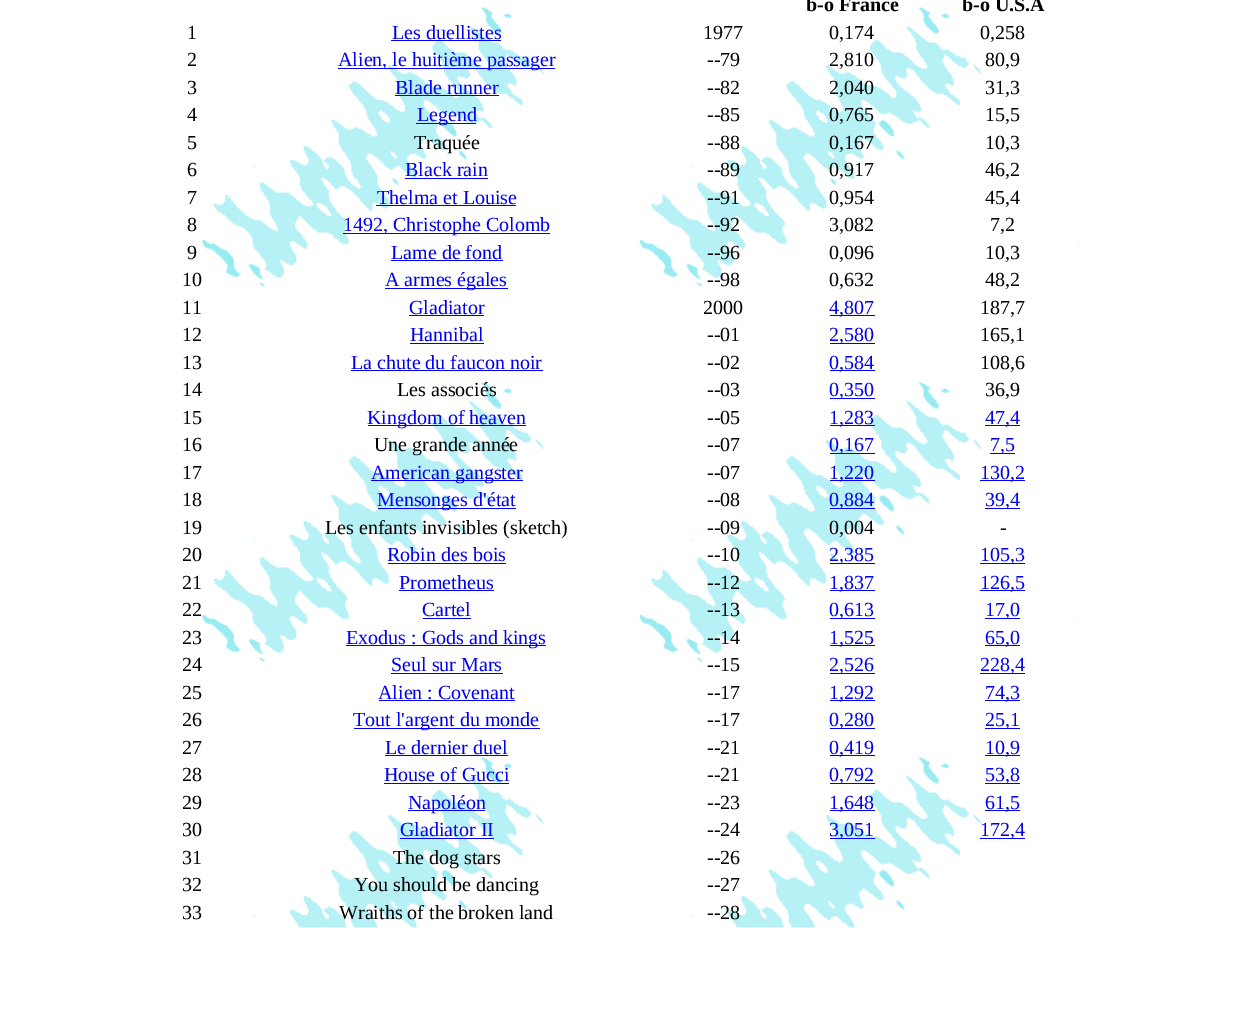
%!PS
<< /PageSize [1239 1029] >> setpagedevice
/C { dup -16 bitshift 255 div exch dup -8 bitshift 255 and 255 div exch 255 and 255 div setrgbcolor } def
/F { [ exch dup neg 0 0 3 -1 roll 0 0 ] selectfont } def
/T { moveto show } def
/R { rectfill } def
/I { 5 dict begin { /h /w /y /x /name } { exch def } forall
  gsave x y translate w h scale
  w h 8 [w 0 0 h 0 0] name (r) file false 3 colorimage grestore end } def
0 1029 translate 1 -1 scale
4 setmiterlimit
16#FFFFFF C
0 0 1239 1029 R
(1.rgb) 201 7 877 921 I
/LiberationSerif-Bold 20 F
16#000000 C
(b-o France) 806 11 T
(b-o U.S.A) 962 11 T
/LiberationSerif-Regular 20 F
(1) 187 39 T
16#0000EE C
(Les duellistes) 392 39 T
391 40 110 1 R
16#000000 C
(1977) 703 39 T
(0,174) 829 39 T
(0,258) 980 39 T
(2) 187 66 T
16#0000EE C
338 68 217 1 R
(Alien, le huitième passager) 338 66 T
16#000000 C
(--79) 707 66 T
(2,810) 829 66 T
(80,9) 985 66 T
(3) 187 94 T
16#0000EE C
(Blade runner) 395 94 T
395 95 104 1 R
16#000000 C
(--82) 707 94 T
(2,040) 829 94 T
(31,3) 985 94 T
(4) 187 121 T
16#0000EE C
416 123 60 1 R
(Legend) 417 121 T
16#000000 C
(--85) 707 121 T
(0,765) 829 121 T
(15,5) 985 121 T
(5) 187 149 T
(Traquée) 414 149 T
(--88) 707 149 T
(0,167) 829 149 T
(10,3) 985 149 T
(6) 187 176 T
16#0000EE C
(Black rain) 405 176 T
405 178 83 1 R
16#000000 C
(--89) 707 176 T
(0,917) 829 176 T
(46,2) 985 176 T
(7) 187 204 T
16#0000EE C
(Thelma et Louise) 377 204 T
376 205 140 1 R
16#000000 C
(--91) 707 204 T
(0,954) 829 204 T
(45,4) 985 204 T
(8) 187 231 T
16#0000EE C
343 233 207 1 R
(1492, Christophe Colomb) 343 231 T
16#000000 C
(--92) 707 231 T
(3,082) 829 231 T
(7,2) 990 231 T
(9) 187 259 T
16#0000EE C
(Lame de fond) 391 259 T
391 260 112 1 R
16#000000 C
(--96) 707 259 T
(0,096) 829 259 T
(10,3) 985 259 T
(10) 182 286 T
16#0000EE C
385 288 123 1 R
(A armes égales) 385 286 T
16#000000 C
(--98) 707 286 T
(0,632) 829 286 T
(48,2) 985 286 T
(11) 182 314 T
16#0000EE C
(Gladiator) 409 314 T
409 315 75 1 R
16#000000 C
(2000) 703 314 T
16#0000EE C
830 315 45 1 R
(4,807) 829 314 T
16#000000 C
(187,7) 980 314 T
(12) 182 341 T
16#0000EE C
(Hannibal) 410 341 T
410 343 74 1 R
16#000000 C
(--01) 707 341 T
16#0000EE C
830 343 45 1 R
(2,580) 829 341 T
16#000000 C
(165,1) 980 341 T
(13) 182 369 T
16#0000EE C
(La chute du faucon noir) 351 369 T
351 370 192 1 R
16#000000 C
(--02) 707 369 T
16#0000EE C
830 370 45 1 R
(0,584) 829 369 T
16#000000 C
(108,6) 980 369 T
(14) 182 396 T
(Les associés) 397 396 T
(--03) 707 396 T
16#0000EE C
830 398 45 1 R
(0,350) 829 396 T
16#000000 C
(36,9) 985 396 T
(15) 182 424 T
16#0000EE C
368 425 158 1 R
(Kingdom of heaven) 367 424 T
16#000000 C
(--05) 707 424 T
16#0000EE C
830 425 45 1 R
(1,283) 829 424 T
985 425 35 1 R
(47,4) 985 424 T
16#000000 C
(16) 182 451 T
(Une grande année) 374 451 T
(--07) 707 451 T
16#0000EE C
830 453 45 1 R
(0,167) 829 451 T
990 453 25 1 R
(7,5) 990 451 T
16#000000 C
(17) 182 479 T
16#0000EE C
371 480 152 1 R
(American gangster) 371 479 T
16#000000 C
(--07) 707 479 T
16#0000EE C
830 480 45 1 R
(1,220) 829 479 T
980 480 45 1 R
(130,2) 980 479 T
16#000000 C
(18) 182 506 T
16#0000EE C
378 508 138 1 R
(Mensonges d'état) 377 506 T
16#000000 C
(--08) 707 506 T
16#0000EE C
830 508 45 1 R
(0,884) 829 506 T
985 508 35 1 R
(39,4) 985 506 T
16#000000 C
(19) 182 534 T
(Les enfants invisibles \(sketch\)) 325 534 T
(--09) 707 534 T
(0,004) 829 534 T
(-) 1000 534 T
(20) 182 561 T
16#0000EE C
(Robin des bois) 387 561 T
388 563 118 1 R
16#000000 C
(--10) 707 561 T
16#0000EE C
830 563 45 1 R
(2,385) 829 561 T
980 563 45 1 R
(105,3) 980 561 T
16#000000 C
(21) 182 589 T
16#0000EE C
(Prometheus) 399 589 T
399 590 95 1 R
16#000000 C
(--12) 707 589 T
16#0000EE C
830 590 45 1 R
(1,837) 829 589 T
980 590 45 1 R
(126,5) 980 589 T
16#000000 C
(22) 182 616 T
16#0000EE C
(Cartel) 422 616 T
423 618 48 1 R
16#000000 C
(--13) 707 616 T
16#0000EE C
830 618 45 1 R
(0,613) 829 616 T
985 618 35 1 R
(17,0) 985 616 T
16#000000 C
(23) 182 644 T
16#0000EE C
346 645 200 1 R
(Exodus : Gods and kings) 346 644 T
16#000000 C
(--14) 707 644 T
16#0000EE C
830 645 45 1 R
(1,525) 829 644 T
985 645 35 1 R
(65,0) 985 644 T
16#000000 C
(24) 182 671 T
16#0000EE C
(Seul sur Mars) 391 671 T
391 673 112 1 R
16#000000 C
(--15) 707 671 T
16#0000EE C
830 673 45 1 R
(2,526) 829 671 T
980 673 45 1 R
(228,4) 980 671 T
16#000000 C
(25) 182 699 T
16#0000EE C
(Alien : Covenant) 378 699 T
379 700 136 1 R
16#000000 C
(--17) 707 699 T
16#0000EE C
830 700 45 1 R
(1,292) 829 699 T
985 700 35 1 R
(74,3) 985 699 T
16#000000 C
(26) 182 726 T
16#0000EE C
354 728 186 1 R
(Tout l'argent du monde) 353 726 T
16#000000 C
(--17) 707 726 T
16#0000EE C
830 728 45 1 R
(0,280) 829 726 T
985 728 35 1 R
(25,1) 985 726 T
16#000000 C
(27) 182 754 T
16#0000EE C
(Le dernier duel) 385 754 T
385 755 123 1 R
16#000000 C
(--21) 707 754 T
16#0000EE C
830 755 45 1 R
(0,419) 829 754 T
985 755 35 1 R
(10,9) 985 754 T
16#000000 C
(28) 182 781 T
16#0000EE C
(House of Gucci) 384 781 T
384 783 125 1 R
16#000000 C
(--21) 707 781 T
16#0000EE C
830 783 45 1 R
(0,792) 829 781 T
985 783 35 1 R
(53,8) 985 781 T
16#000000 C
(29) 182 809 T
16#0000EE C
408 810 77 1 R
(Napoléon) 408 809 T
16#000000 C
(--23) 707 809 T
16#0000EE C
830 810 45 1 R
(1,648) 829 809 T
985 810 35 1 R
(61,5) 985 809 T
16#000000 C
(30) 182 836 T
16#0000EE C
(Gladiator II) 400 836 T
400 838 94 1 R
16#000000 C
(--24) 707 836 T
16#0000EE C
830 838 45 1 R
(3,051) 829 836 T
980 838 45 1 R
(172,4) 980 836 T
16#000000 C
(31) 182 864 T
(The dog stars) 393 864 T
(--26) 707 864 T
(32) 182 891 T
(You should be dancing) 354 891 T
(--27) 707 891 T
(33) 182 919 T
(Wraiths of the broken land) 339 919 T
(--28) 707 919 T
showpage
